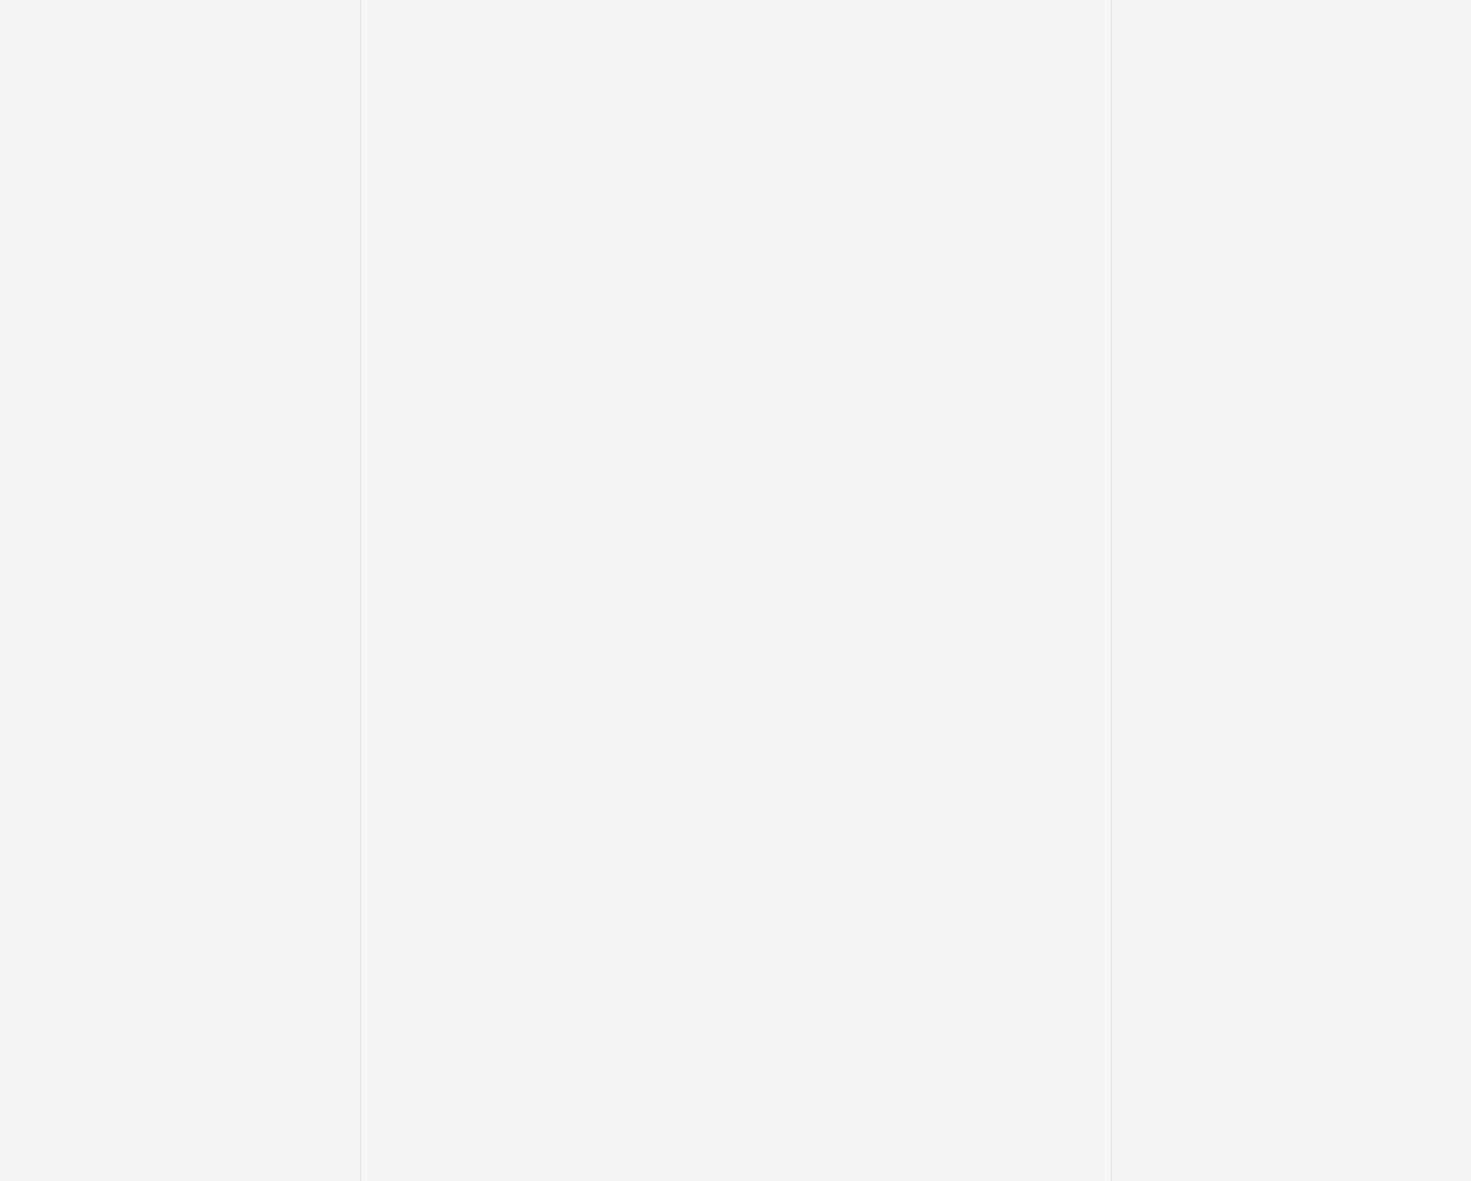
%!PS
<< /PageSize [1471 1181] >> setpagedevice
/C { dup -16 bitshift 255 div exch dup -8 bitshift 255 and 255 div exch 255 and 255 div setrgbcolor } def
/R { rectfill } def
0 1181 translate 1 -1 scale
4 setmiterlimit
16#F5F5F5 C
0 0 1471 1181 R
16#E0E0E0 C
1111 0 1 1181 R
360 0 1 1181 R
showpage
